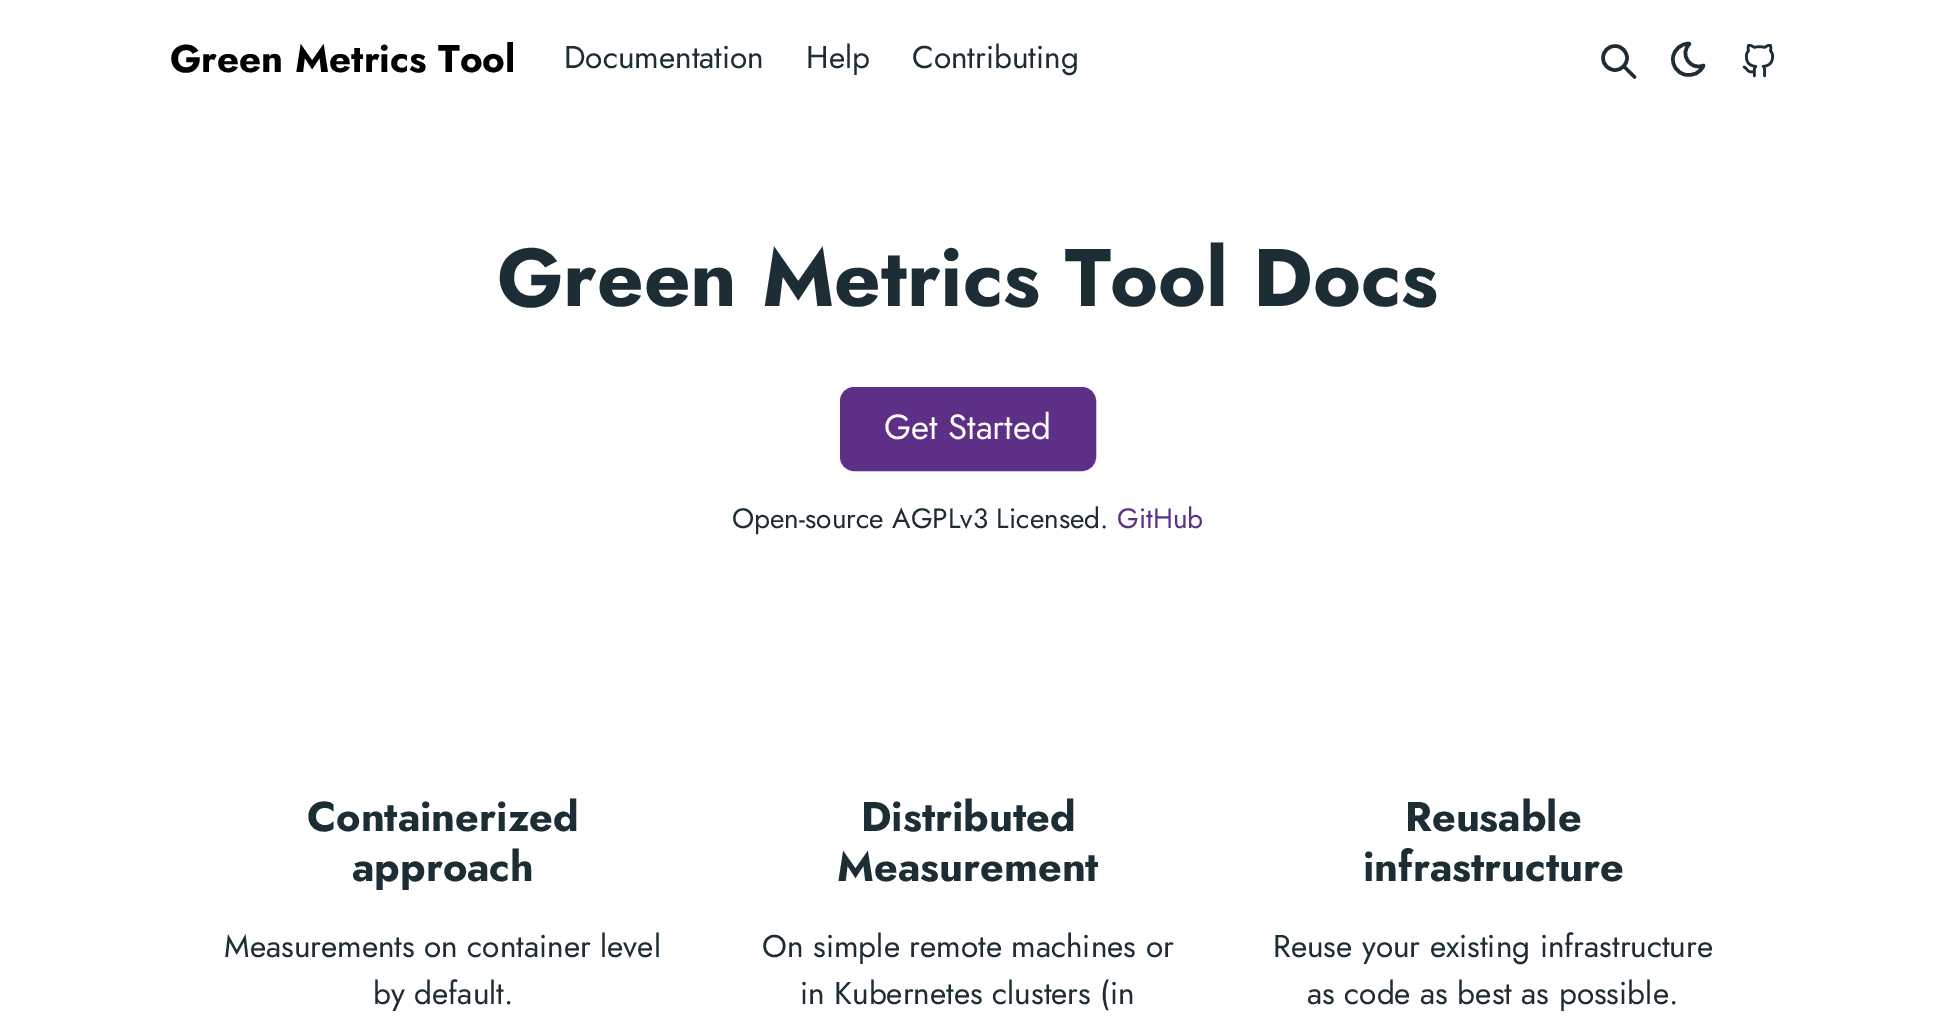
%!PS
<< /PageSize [1934 1017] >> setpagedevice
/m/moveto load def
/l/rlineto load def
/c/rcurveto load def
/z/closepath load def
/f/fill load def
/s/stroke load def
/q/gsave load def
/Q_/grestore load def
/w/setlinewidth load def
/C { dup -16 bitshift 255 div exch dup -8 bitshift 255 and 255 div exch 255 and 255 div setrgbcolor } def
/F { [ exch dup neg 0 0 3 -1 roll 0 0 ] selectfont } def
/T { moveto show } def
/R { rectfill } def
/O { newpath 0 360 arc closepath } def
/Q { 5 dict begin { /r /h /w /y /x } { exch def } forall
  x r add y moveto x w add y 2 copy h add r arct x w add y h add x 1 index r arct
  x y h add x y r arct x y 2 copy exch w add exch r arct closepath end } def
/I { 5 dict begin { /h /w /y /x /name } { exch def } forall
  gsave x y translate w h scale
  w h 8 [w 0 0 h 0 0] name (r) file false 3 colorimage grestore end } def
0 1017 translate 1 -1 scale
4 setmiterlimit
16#FFFFFF C
0 0 1934 1017 R
/Jost-Bold 38.5 F
16#000000 C
(Green Metrics Tool) 170 72 T
/Jost-Regular 31.5 F
16#1D2D35 C
(Documentation) 564 68 T
(Help) 806 68 T
(Contributing) 912 68 T
3.5 w
1615 58 12 O s
1 setlinecap
1 setlinejoin
1634.5 77 m -10.5 -10.5 l s
1689 44 m .5 0 l -10.5 9.5 .5 27 14 21.5 c -3 7.5 -11 11 -19 9 c -7.5 -2 -12.5 -9 -11.5 -17 c 1 -8 8 -14 16 -14 c z s
(1.rgb) 1742 44 33 34 I
/Jost-Bold 81.5 F
(Green Metrics Tool Docs) 497 306 T
16#5D2F86 C
841 388 254 82 13 Q q f Q_
2 w
0 setlinecap
0 setlinejoin
s
/Jost-Regular 35 F
16#FFFFFF C
(Get Started) 884 439 T
/Jost-Regular 28 F
16#1D2D35 C
(Open-source AGPLv3 Licensed.) 732 528 T
16#5D2F86 C
(GitHub) 1117 528 T
/Jost-Bold 41.5 F
16#1D2D35 C
(Containerized) 307 831 T
(approach) 352 881 T
/Jost-Regular 31.5 F
(Measurements on container level) 224 957 T
(by default.) 373 1004 T
/Jost-Bold 41.5 F
(Distributed) 861 831 T
(Measurement) 837 881 T
/Jost-Regular 31.5 F
(On simple remote machines or) 762 957 T
(in Kubernetes clusters \(in) 800 1004 T
/Jost-Bold 41.5 F
(Reusable) 1405 831 T
(infrastructure) 1363 881 T
/Jost-Regular 31.5 F
(Reuse your existing infrastructure) 1273 957 T
(as code as best as possible.) 1307 1004 T
showpage
